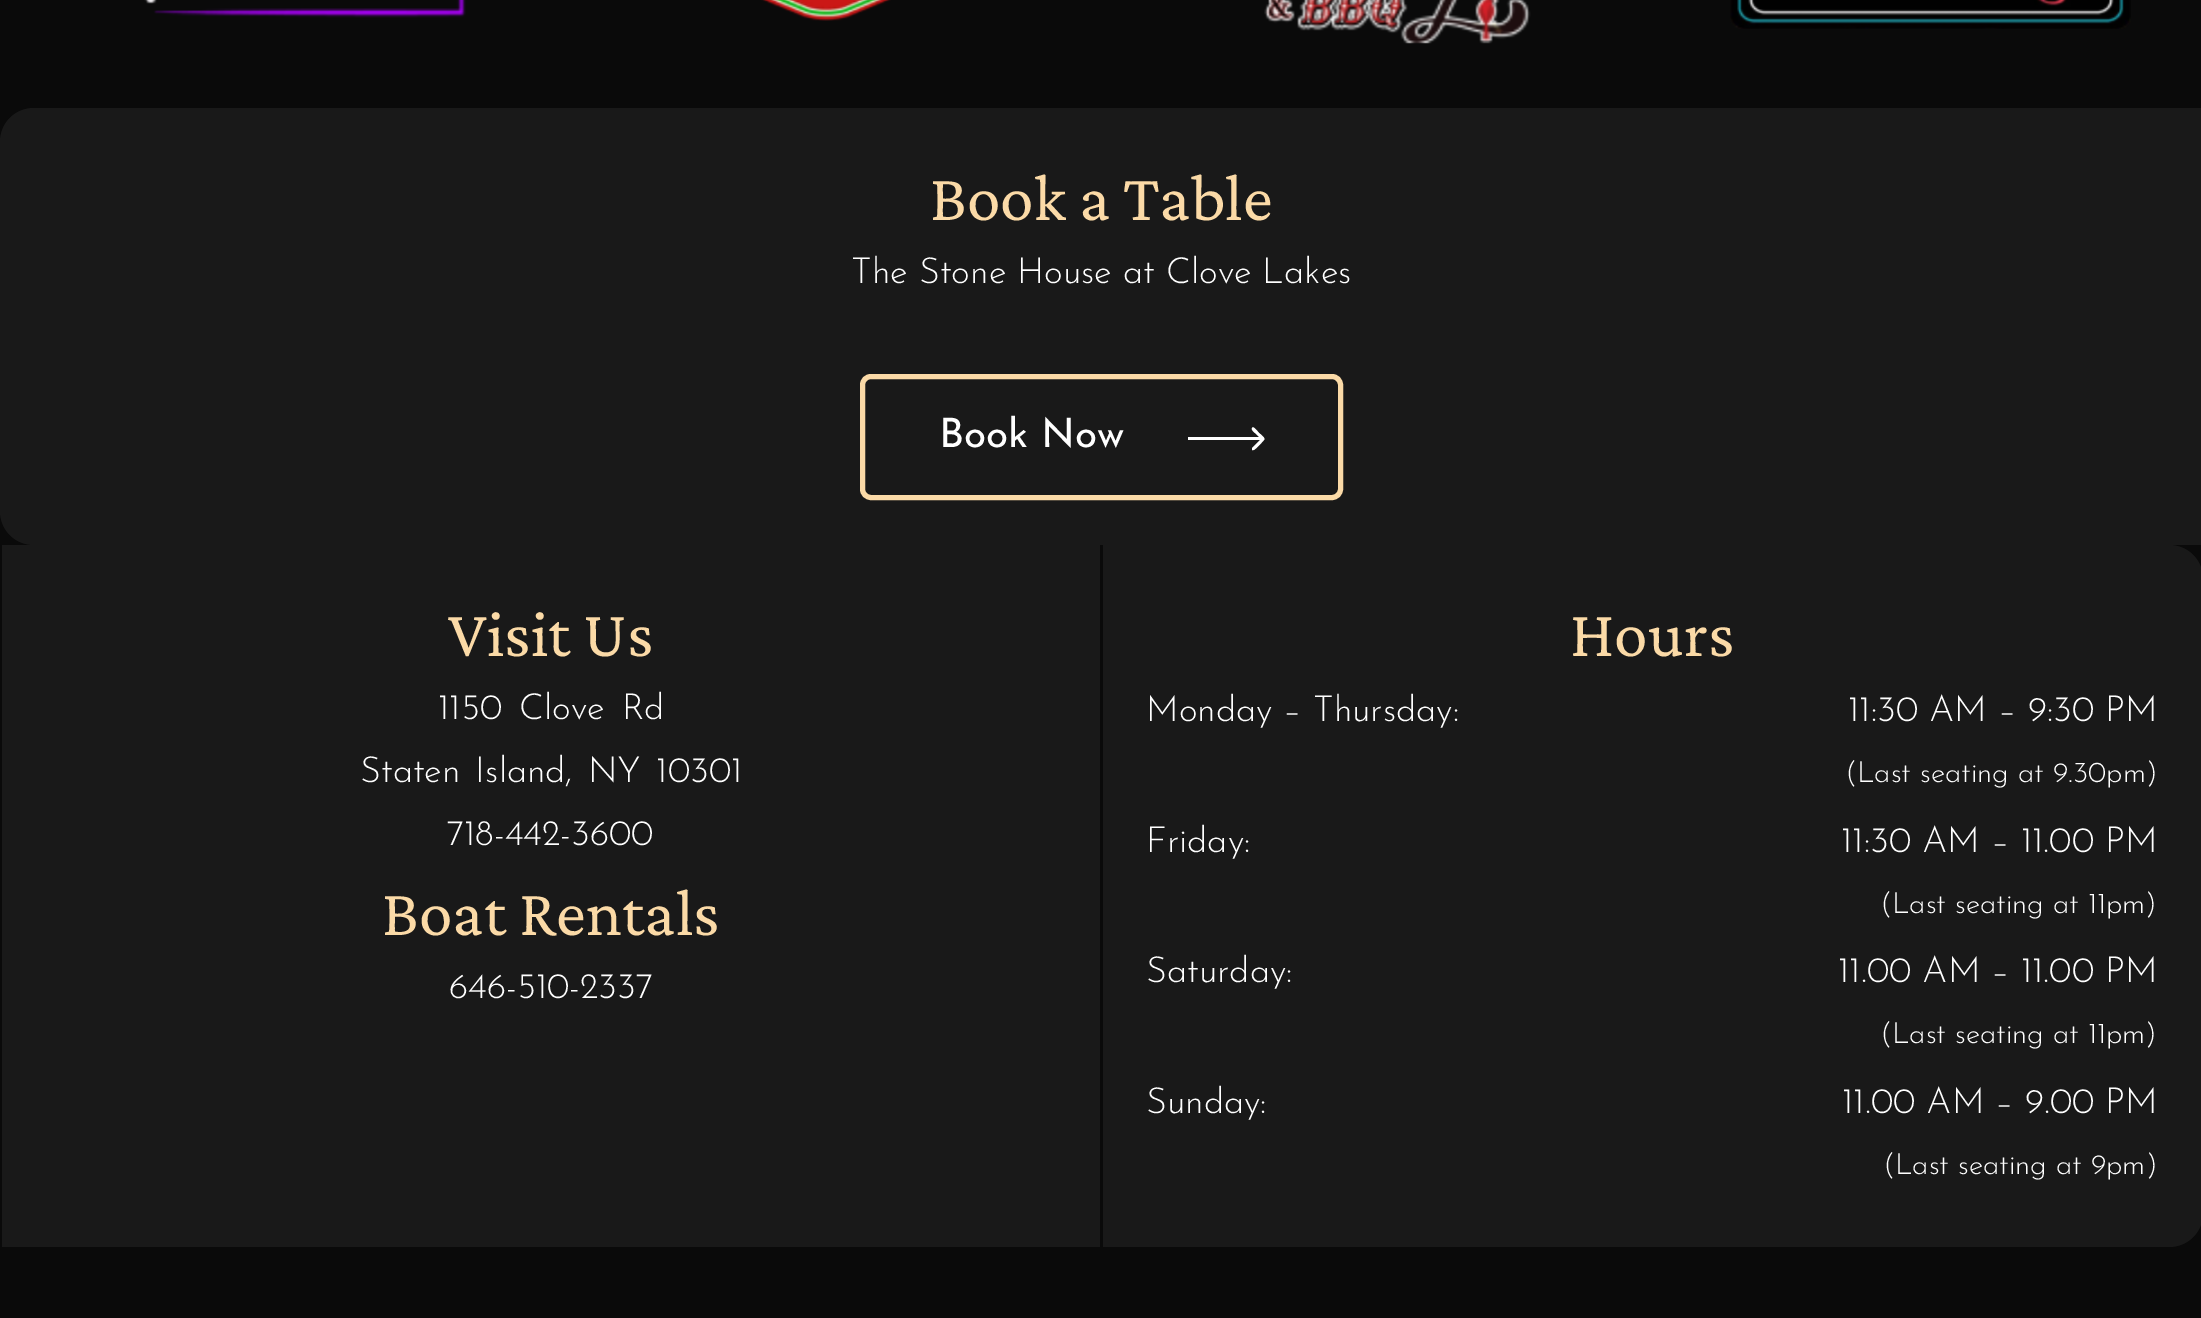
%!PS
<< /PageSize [2201 1318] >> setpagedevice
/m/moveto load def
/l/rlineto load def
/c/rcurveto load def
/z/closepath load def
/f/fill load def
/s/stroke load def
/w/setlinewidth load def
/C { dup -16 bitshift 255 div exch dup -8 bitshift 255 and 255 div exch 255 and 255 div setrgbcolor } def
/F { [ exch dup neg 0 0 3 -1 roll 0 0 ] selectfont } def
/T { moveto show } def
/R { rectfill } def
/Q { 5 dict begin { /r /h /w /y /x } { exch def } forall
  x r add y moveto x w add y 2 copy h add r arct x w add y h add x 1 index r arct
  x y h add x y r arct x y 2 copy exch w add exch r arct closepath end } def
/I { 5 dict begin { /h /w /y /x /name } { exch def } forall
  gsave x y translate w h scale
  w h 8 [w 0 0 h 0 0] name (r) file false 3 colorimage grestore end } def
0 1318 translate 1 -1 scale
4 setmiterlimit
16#0A0A0A C
0 0 2201 1318 R
(1.rgb) 144 0 322 18 I
(2.rgb) 761 0 130 21 I
(3.rgb) 1264 0 267 44 I
(4.rgb) 1730 0 401 29 I
16#191919 C
34 108 m 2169 0 l 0 437 l -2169 0 l -19 0 -34 -15 -34 -34 c 0 -369 l 0 -19 15 -34 34 -34 c z f
/CrimsonPro-Regular 67.5 F
16#FBDAA7 C
(Book a Table) 930 220 T
/JosefinSans-Light 36 F
16#FFFFFF C
(The Stone House at Clove Lakes) 851 283 T
16#FBDAA7 C
5 w
862.5 376.5 478 121 8.5 Q s
/JosefinSans-Regular 40.5 F
16#FFFFFF C
(Book Now) 939 447 T
1264 440 m 2 -2 -4 -6 -5 -7 c -1 -1 -6 -8 -7 -5 c -1 2 2 4 3 5 c 6 6 l -9 9 l 0 2 l 2 2 10 -8 12 -10 c z 1188 440 m 75 0 l 0 -3 l -75 0 l z f
16#191919 C
2 545 1098 702 R
/CrimsonPro-Regular 67.5 F
16#FBDAA7 C
(Visit Us) 448 656 T
/JosefinSans-Light 36 F
16#FFFFFF C
438 719 m 6 0 32 (1150 Clove Rd) widthshow
360 782 m 4 0 32 (Staten Island, NY 10301) widthshow
(718-442-3600) 447 845 T
/CrimsonPro-Regular 67.5 F
16#FBDAA7 C
(Boat Rentals) 382 935 T
/JosefinSans-Light 36 F
16#FFFFFF C
(646-510-2337) 449 998 T
16#191919 C
1103 545 m 1066 0 l 19 0 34 15 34 34 c 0 634 l 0 19 -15 34 -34 34 c -1066 0 l z f
/CrimsonPro-Regular 67.5 F
16#FBDAA7 C
(Hours) 1570 656 T
/JosefinSans-Light 36 F
16#FFFFFF C
(Monday – Thursday:) 1146 721 T
(11:30 AM – 9:30 PM) 1848 721 T
/JosefinSans-Light 29.25 F
(\(Last seating at 9.30pm\)) 1845 782 T
/JosefinSans-Light 36 F
(Friday:) 1146 852 T
(11:30 AM – 11.00 PM) 1841 852 T
/JosefinSans-Light 29.25 F
(\(Last seating at 11pm\)) 1880 913 T
/JosefinSans-Light 36 F
(Saturday:) 1146 982 T
(11.00 AM – 11.00 PM) 1838 982 T
/JosefinSans-Light 29.25 F
(\(Last seating at 11pm\)) 1880 1043 T
/JosefinSans-Light 36 F
(Sunday:) 1146 1113 T
(11.00 AM – 9.00 PM) 1842 1113 T
/JosefinSans-Light 29.25 F
(\(Last seating at 9pm\)) 1883 1174 T
showpage
